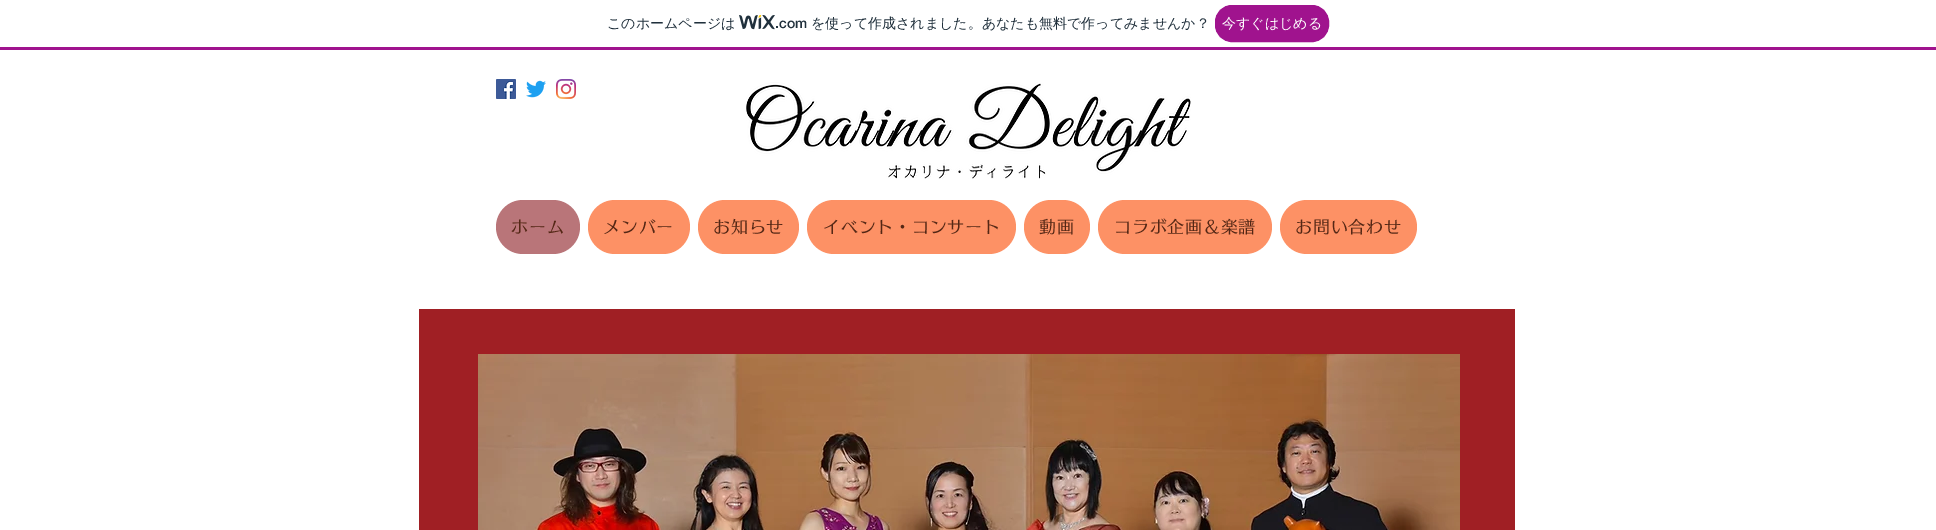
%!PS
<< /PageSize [1936 530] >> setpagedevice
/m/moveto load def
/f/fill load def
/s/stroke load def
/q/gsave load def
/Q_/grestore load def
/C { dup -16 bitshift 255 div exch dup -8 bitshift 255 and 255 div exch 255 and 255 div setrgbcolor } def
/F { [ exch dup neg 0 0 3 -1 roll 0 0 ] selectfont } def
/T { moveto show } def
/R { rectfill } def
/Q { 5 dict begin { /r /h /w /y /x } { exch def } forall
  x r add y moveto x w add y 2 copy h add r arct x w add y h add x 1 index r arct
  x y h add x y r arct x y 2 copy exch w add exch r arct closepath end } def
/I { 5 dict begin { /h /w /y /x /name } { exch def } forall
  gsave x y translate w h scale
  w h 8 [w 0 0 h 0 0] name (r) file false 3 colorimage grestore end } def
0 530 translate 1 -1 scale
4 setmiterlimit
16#FFFFFF C
0 0 1936 530 R
16#A0138E C
0 47 1936 3 R
/WenQuanYiZenHei-Medium 14 F
16#20303C C
(このホームページは) 607 28 T
(1.rgb) 739 15 36 15 I
/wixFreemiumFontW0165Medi-Medium 14 F
(.com) 775 28 T
/WenQuanYiZenHei-Medium 14 F
(を使って作成されました。あなたも無料で作ってみませんか？) 811 28 T
16#A0138E C
1215.5 5.5 113 36 16.5 Q q f Q_
s
16#FFFFFF C
(今すぐはじめる) 1222 28 T
(2.rgb) 496 79 20 20 I
(3.rgb) 526 80 20 18 I
(4.rgb) 556 79 20 20 I
(5.rgb) 746 82 445 97 I
16#B97579 C
496 200 84 54 27 Q f
/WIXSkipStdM-Medium 17 F
16#542715 C
511 233 m .75 0 (ホーム) ashow
16#FD9165 C
588 200 102 54 27 Q f
16#542715 C
603 233 m .75 0 (メンバー) ashow
16#FD9165 C
698 200 101 54 27 Q f
16#542715 C
713 233 m .75 0 (お知らせ) ashow
16#FD9165 C
807 200 209 54 27 Q f
16#542715 C
823 233 m .75 0 (イベント・コンサート) ashow
16#FD9165 C
1024 200 66 54 27 Q f
16#542715 C
1039 233 m .75 0 (動画) ashow
16#FD9165 C
1098 200 174 54 27 Q f
16#542715 C
1114 233 m .75 0 (コラボ企画＆楽譜) ashow
16#FD9165 C
1280 200 137 54 27 Q f
16#542715 C
1295 233 m .75 0 (お問い合わせ) ashow
16#A01F24 C
419 309 1096 221 R
(6.rgb) 478 354 982 176 I
showpage
